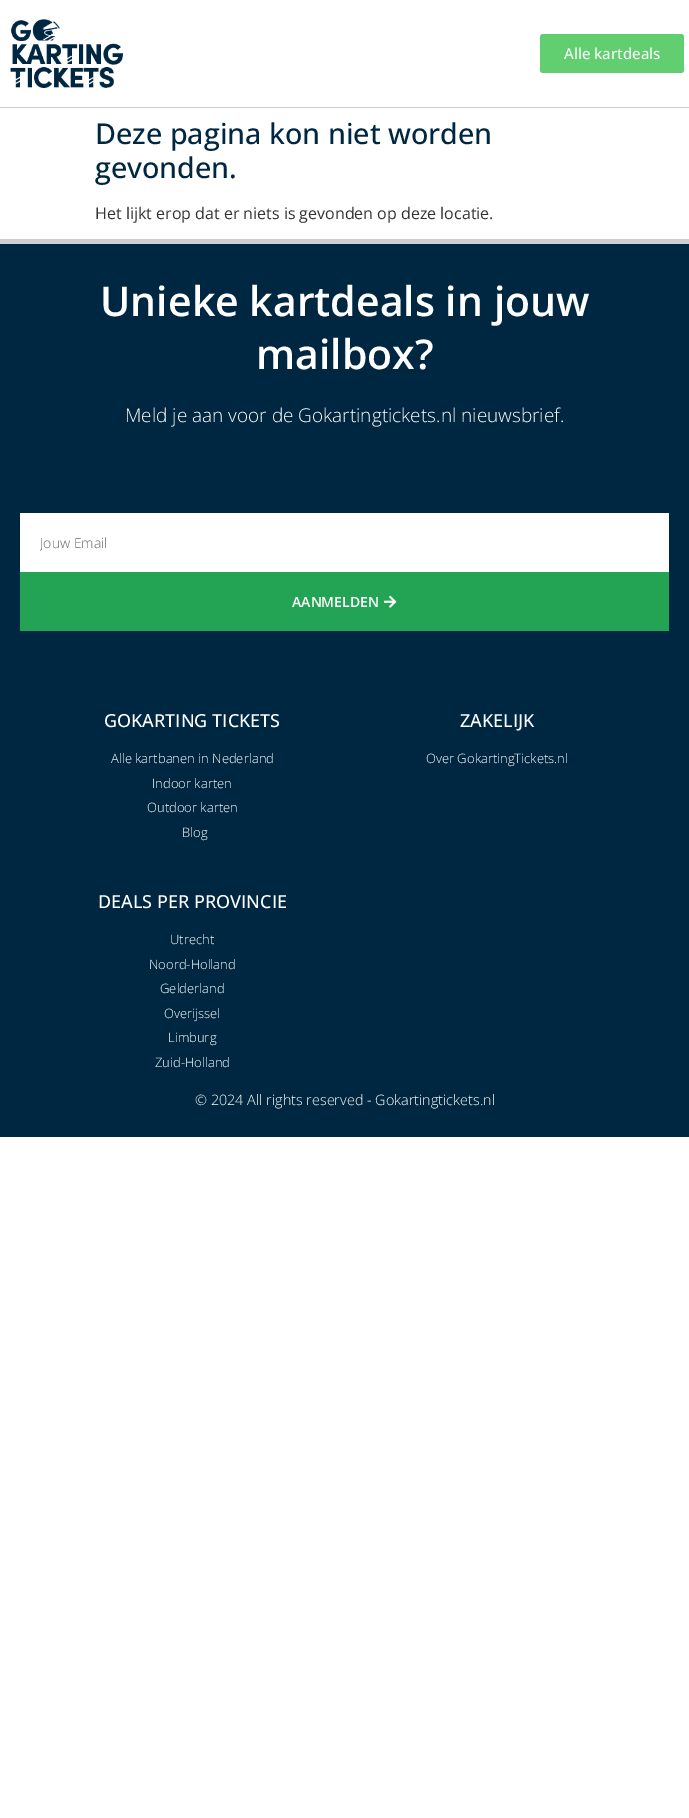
%!PS
<< /PageSize [689 1818] >> setpagedevice
/f/fill load def
/q/gsave load def
/Q_/grestore load def
/C { dup -16 bitshift 255 div exch dup -8 bitshift 255 and 255 div exch 255 and 255 div setrgbcolor } def
/F { [ exch dup neg 0 0 3 -1 roll 0 0 ] selectfont } def
/T { moveto show } def
/R { rectfill } def
/Q { 5 dict begin { /r /h /w /y /x } { exch def } forall
  x r add y moveto x w add y 2 copy h add r arct x w add y h add x 1 index r arct
  x y h add x y r arct x y 2 copy exch w add exch r arct closepath end } def
/I { 5 dict begin { /h /w /y /x /name } { exch def } forall
  gsave x y translate w h scale
  w h 8 [w 0 0 h 0 0] name (r) file false 3 colorimage grestore end } def
0 1818 translate 1 -1 scale
4 setmiterlimit
16#FFFFFF C
0 0 689 1818 R
16#CFCFCF C
0 107 689 1 R
(1.rgb) 10 19 113 69 I
16#61CE70 C
540 34 144 39 3 Q f
/OpenSans-Medium 15 F
16#FFFFFF C
(Alle kartdeals) 564 59 T
/OpenSans-Medium 28.75 F
16#002741 C
(Deze pagina kon niet worden) 95 144 T
(gevonden.) 95 178 T
/OpenSans-Regular 16 F
16#333333 C
(Het lijkt erop dat er niets is gevonden op deze locatie.) 95 219 T
16#002741 C
0 244 689 893 R
16#CECECE C
0 239 689 5 R
/OpenSans-SemiBold 41 F
16#FFFFFF C
(Unieke kartdeals in jouw) 100 316 T
(mailbox?) 256 369 T
/OpenSans-Light 19 F
(Meld je aan voor de Gokartingtickets.nl nieuwsbrief.) 125 422 T
20 513 649 59 R
q
40 533 609 19 rectclip
/OpenSans-Light 14 F
16#666666 C
(Jouw Email) 40 548 T
Q_
16#23A455 C
20 572 649 59 R
/OpenSans-SemiBold 14 F
16#FFFFFF C
(AANMELDEN) 292 607 T
(2.rgb) 384 595 13 13 I
/OpenSans-Medium 18 F
(GOKARTING TICKETS) 104 727 T
/OpenSans-Light 13 F
(Alle kartbanen in Nederland) 111 763 T
(Indoor karten) 152 788 T
(Outdoor karten) 147 812 T
(Blog) 182 837 T
/OpenSans-Medium 18 F
(ZAKELIJK) 460 727 T
/OpenSans-Light 13 F
(Over GokartingTickets.nl) 426 763 T
/OpenSans-Medium 18 F
(DEALS PER PROVINCIE) 98 908 T
/OpenSans-Light 13 F
(Utrecht) 170 944 T
(Noord-Holland) 149 969 T
(Gelderland) 160 993 T
(Overijssel) 164 1018 T
(Limburg) 168 1042 T
(Zuid-Holland) 155 1067 T
/OpenSans-Light 14.4 F
(© 2024 All rights reserved - Gokartingtickets.nl) 195 1105 T
showpage
